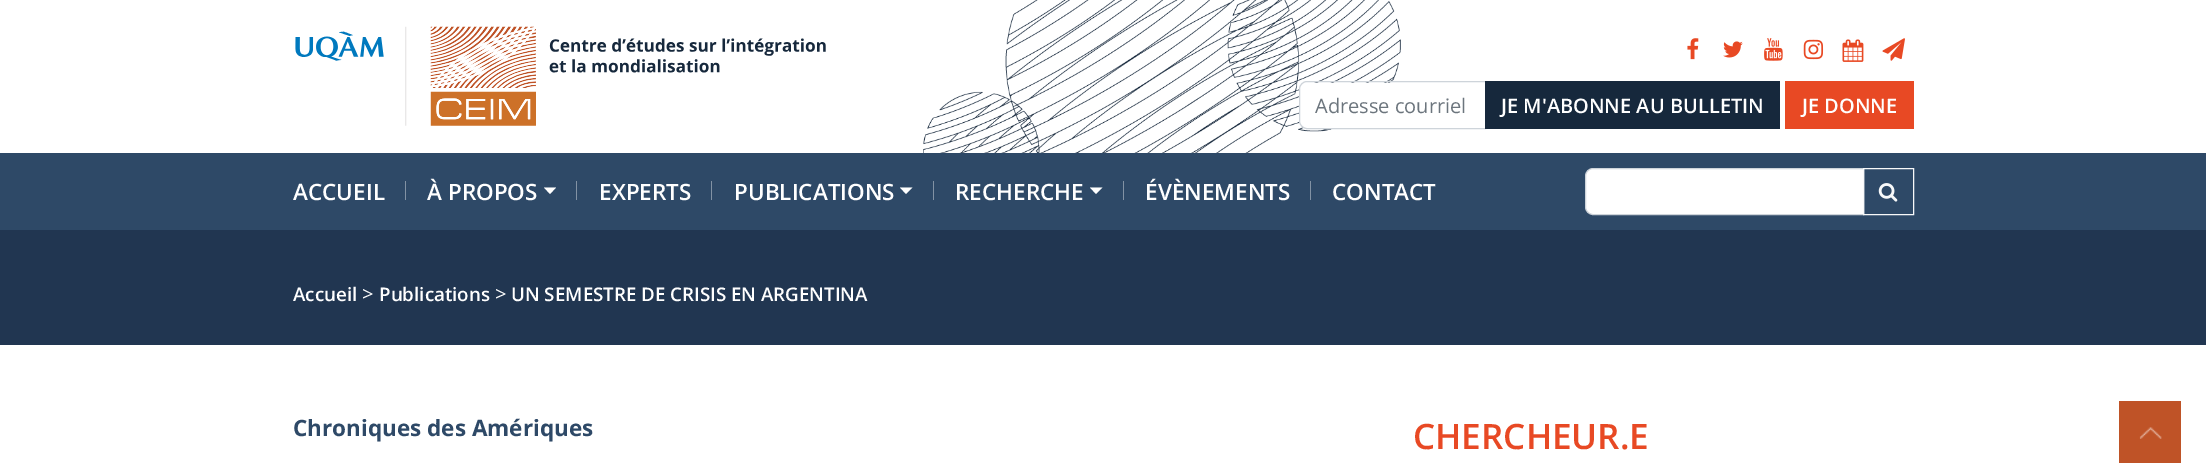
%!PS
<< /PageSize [2206 463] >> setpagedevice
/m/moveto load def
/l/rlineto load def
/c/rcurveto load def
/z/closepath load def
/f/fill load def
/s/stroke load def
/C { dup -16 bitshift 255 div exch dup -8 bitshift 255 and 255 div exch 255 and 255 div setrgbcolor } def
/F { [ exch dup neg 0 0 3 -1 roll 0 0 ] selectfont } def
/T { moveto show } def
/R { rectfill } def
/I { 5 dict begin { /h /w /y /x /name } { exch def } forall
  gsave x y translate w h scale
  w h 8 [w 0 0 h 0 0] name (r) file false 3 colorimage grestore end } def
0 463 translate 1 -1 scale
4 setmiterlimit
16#FFFFFF C
0 0 2206 463 R
(1.rgb) 923 0 478 153 I
(2.rgb) 295 26 531 100 I
(3.rgb) 1687 38 12 22 I
(4.rgb) 1723 41 20 17 I
(5.rgb) 1764 38 19 23 I
(6.rgb) 1803 39 21 21 I
(7.rgb) 1842 39 22 23 I
(8.rgb) 1882 38 23 23 I
1306 83 m 179 0 l 0 45 l -179 0 l -3.5 0 -6 -2.5 -6 -6 c 0 -33 l 0 -3.5 2.5 -6 6 -6 c z f
16#CED4DA C
1307 81.5 m 178.5 0 l 0 47 l -178.5 0 l -4 0 -7.5 -3.5 -7.5 -7.5 c 0 -32 l 0 -4 3.5 -7.5 7.5 -7.5 c z s
/OpenSans-Regular 20 F
16#6C757D C
(Adresse courriel) 1315 113 T
16#16283C C
1485 81 295 48 R
/OpenSans-SemiBold 20 F
16#FFFFFF C
(JE M'ABONNE AU BULLETIN) 1501 113 T
16#E84924 C
1785 81 129 48 R
16#FFFFFF C
(JE DONNE) 1802 113 T
16#2E4967 C
0 153 2206 77 R
/OpenSans-SemiBold 22.5 F
16#FFFFFF C
(ACCUEIL) 293 200 T
16#8292A4 C
405 181 1 19 R
16#FFFFFF C
(À PROPOS) 427 200 T
544 187.5 m 12 0 l -6 6.5 l z f
16#8292A4 C
576 181 1 19 R
16#FFFFFF C
(EXPERTS) 599 200 T
16#8292A4 C
711 181 1 19 R
16#FFFFFF C
(PUBLICATIONS) 734 200 T
900 187.5 m 12.5 0 l -6.5 6.5 l z f
16#8292A4 C
933 181 1 19 R
16#FFFFFF C
(RECHERCHE) 955 200 T
1090 187.5 m 12.5 0 l -6.5 6.5 l z f
16#8292A4 C
1123 181 1 19 R
16#FFFFFF C
(ÉVÈNEMENTS) 1145 200 T
16#8292A4 C
1310 181 1 19 R
16#FFFFFF C
(CONTACT) 1332 200 T
1592 169 m 271 0 l 0 45 l -271 0 l -3.5 0 -6 -2.5 -6 -6 c 0 -33 l 0 -3.5 2.5 -6 6 -6 c z f
16#CED4DA C
1593 168.5 m 270.5 0 l 0 46 l -270.5 0 l -4 0 -7.5 -3.5 -7.5 -7.5 c 0 -31 l 0 -4 3.5 -7.5 7.5 -7.5 c z s
16#F8F9FA C
1863.5 168.5 50 46 rectstroke
(9.rgb) 1878 183 20 19 I
16#213651 C
0 230 2206 115 R
/OpenSans-SemiBold 18.75 F
16#FFFFFF C
(Accueil) 293 301 T
/OpenSans-Regular 20 F
(>) 362 301 T
/OpenSans-SemiBold 18.75 F
(Publications) 379 301 T
/OpenSans-Regular 20 F
(>) 495 301 T
/OpenSans-SemiBold 18.75 F
(UN SEMESTRE DE CRISIS EN ARGENTINA) 511 301 T
/OpenSans-Bold 22.5 F
16#2E4967 C
(Chroniques des Amériques) 293 436 T
/OpenSans-SemiBold 35 F
16#E84924 C
(CHERCHEUR.E) 1413 449 T
16#BF5327 C
2119 401 62 62 R
(10.rgb) 2139 427 23 12 I
showpage
